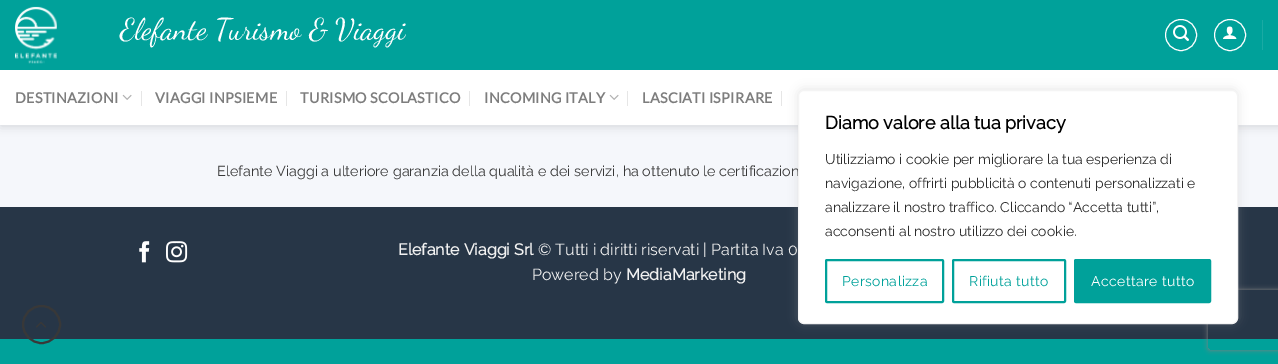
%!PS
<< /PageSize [1278 364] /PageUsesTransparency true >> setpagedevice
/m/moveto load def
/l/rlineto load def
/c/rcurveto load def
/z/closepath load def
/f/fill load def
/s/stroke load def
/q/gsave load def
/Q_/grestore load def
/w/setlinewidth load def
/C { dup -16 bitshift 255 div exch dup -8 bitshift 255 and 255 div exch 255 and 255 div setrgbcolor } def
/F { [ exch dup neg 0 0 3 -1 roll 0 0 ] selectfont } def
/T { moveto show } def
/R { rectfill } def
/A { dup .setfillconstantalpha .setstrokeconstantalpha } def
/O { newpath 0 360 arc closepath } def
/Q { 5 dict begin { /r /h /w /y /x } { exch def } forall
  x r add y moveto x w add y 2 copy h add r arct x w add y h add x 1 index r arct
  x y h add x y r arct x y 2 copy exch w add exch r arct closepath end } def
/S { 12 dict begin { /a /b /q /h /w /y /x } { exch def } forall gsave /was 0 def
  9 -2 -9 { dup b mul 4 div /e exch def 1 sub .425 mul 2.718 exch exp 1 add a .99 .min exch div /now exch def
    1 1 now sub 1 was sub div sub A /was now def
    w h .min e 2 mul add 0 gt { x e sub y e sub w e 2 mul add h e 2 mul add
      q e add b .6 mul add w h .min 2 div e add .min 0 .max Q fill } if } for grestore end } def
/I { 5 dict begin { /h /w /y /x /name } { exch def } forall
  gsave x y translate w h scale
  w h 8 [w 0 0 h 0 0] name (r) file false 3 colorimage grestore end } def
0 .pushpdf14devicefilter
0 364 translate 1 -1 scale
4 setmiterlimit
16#00A19A C
0 0 1278 364 R
16#F5F7FB C
0 125 1278 82 R
16#000000 C
1 1 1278 125 0 5 .15 S
16#00A19A C
0 0 1278 70 R
(1.rgb) 15 6 42 58 I
/DancingScript-Regular 30 F
16#FFFFFF C
(Elefante Turismo & Viaggi) 120 39 T
1181 35 15.5 O s
(2.rgb) 1173 25 16 16 I
1230 35 15.5 O s
(3.rgb) 1223 26 14 13 I
16#1AAAA4 C
1262 20 1 30 R
16#FFFFFF C
0 70 1278 55 R
/Lato-Bold 14.4 F
16#7D7D7D C
15 103 m .25 0 (DESTINAZIONI) ashow
(4.rgb) 122 94 10 6 I
16#E6E6E6 C
141 91 1 15 R
16#7D7D7D C
155 103 m .25 0 (VIAGGI INPSIEME) ashow
16#E6E6E6 C
286 91 1 15 R
16#7D7D7D C
300 103 m .25 0 (TURISMO SCOLASTICO) ashow
16#E6E6E6 C
469 91 1 15 R
16#7D7D7D C
484 103 m .25 0 (INCOMING ITALY) ashow
(4.rgb) 609 94 10 6 I
16#E6E6E6 C
627 91 1 15 R
16#7D7D7D C
642 103 m .25 0 (LASCIATI ISPIRARE) ashow
16#E6E6E6 C
781 91 1 15 R
/Raleway-Thin 14.4 F
16#383838 C
(Elefante Viaggi a ulteriore garanzia della qualità e dei servizi, ha ottenuto le certificazion) 217 176 T
16#273647 C
0 207 1278 132 R
(5.rgb) 139 241 11 22 I
(6.rgb) 166 241 22 22 I
/Raleway-Bold 16 F
16#F1F1F1 C
(Elefante Viaggi Srl) 398 255 T
/Raleway-Thin 16 F
(© Tutti i diritti riservati | Partita Iva 0) 538 255 T
(Powered by) 532 280 T
/Raleway-Bold 16 F
(MediaMarketing) 626 280 T
16#383838 C
2 w
41.5 324.5 18.5 O s
(7.rgb) 36 322 10 6 I
16#ACABAB C
798 89 440 234 6 5 .3 S
q
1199 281 m 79 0 l 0 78 l -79 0 l z 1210 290 m 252 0 l 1 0 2 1 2 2 c 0 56 l 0 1 -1 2 -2 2 c -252 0 l -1 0 -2 -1 -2 -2 c 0 -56 l 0 -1 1 -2 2 -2 c z eoclip newpath
16#808080 C
1208 290 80 60 2 2.5 1 S
Q_
16#FFFFFF C
798.5 90.5 439 233 5.5 Q q f Q_
16#F4F4F4 C
1 w
s
/Raleway-Bold 18 F
16#000000 C
(Diamo valore alla tua privacy) 825 129 T
/Raleway-Thin 14 F
16#2C2C2C C
(Utilizziamo i cookie per migliorare la tua esperienza di) 825 164 T
(navigazione, offrirti pubblicità o contenuti personalizzati e) 825 188 T
(analizzare il nostro traffico. Cliccando “Accetta tutti”,) 825 212 T
(acconsenti al nostro utilizzo dei cookie.) 825 236 T
16#00A19A C
2 w
826 260 117 42 1 Q s
842 286 m .4 0 (Personalizza) ashow
953 260 112 42 1 Q s
969 286 m .4 0 (Rifiuta tutto) ashow
1075 260 135 42 1 Q q f Q_
s
16#FFFFFF C
1091 286 m .4 0 (Accettare tutto) ashow
.poppdf14devicefilter showpage
